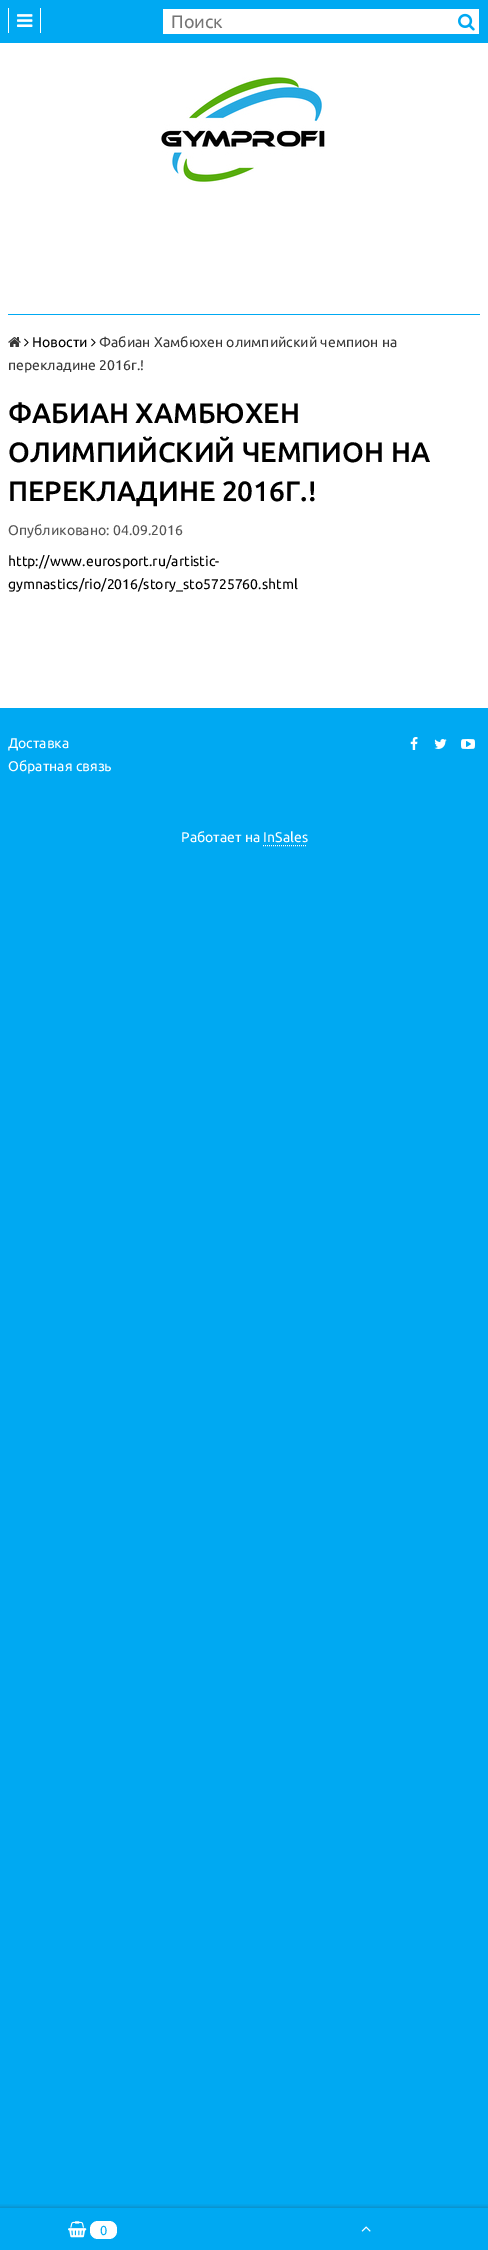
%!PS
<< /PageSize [488 2250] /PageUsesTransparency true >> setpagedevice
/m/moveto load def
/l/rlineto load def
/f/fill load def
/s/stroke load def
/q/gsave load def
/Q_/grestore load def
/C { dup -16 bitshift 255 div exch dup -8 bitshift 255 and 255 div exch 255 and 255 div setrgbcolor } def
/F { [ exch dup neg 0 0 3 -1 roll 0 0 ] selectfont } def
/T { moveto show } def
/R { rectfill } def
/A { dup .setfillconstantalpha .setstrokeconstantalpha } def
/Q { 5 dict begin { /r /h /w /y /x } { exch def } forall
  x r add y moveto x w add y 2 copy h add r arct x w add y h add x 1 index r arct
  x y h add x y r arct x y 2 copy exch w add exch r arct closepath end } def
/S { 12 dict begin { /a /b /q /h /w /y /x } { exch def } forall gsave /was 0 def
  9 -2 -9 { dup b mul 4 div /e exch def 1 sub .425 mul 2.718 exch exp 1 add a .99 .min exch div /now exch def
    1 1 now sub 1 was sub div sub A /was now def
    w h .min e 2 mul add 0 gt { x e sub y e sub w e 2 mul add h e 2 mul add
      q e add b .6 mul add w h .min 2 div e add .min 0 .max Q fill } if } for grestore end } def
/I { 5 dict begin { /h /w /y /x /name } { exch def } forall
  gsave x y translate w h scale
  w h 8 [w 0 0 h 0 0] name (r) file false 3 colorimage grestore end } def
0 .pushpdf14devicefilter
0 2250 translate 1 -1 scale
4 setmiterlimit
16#00A9F2 C
0 0 488 2250 R
16#FFFFFF C
0 43 488 665 R
40 8 1 25 R
8 8 1 25 R
(1.rgb) 17 14 16 13 I
163 9 316 25 R
/Ubuntu-Regular 18 F
16#757575 C
(Поиск) 171 28 T
(2.rgb) 458 13 17 18 I
(3.rgb) 161 77 164 107 I
16#00A9F2 C
8 314 472 1 R
(4.rgb) 8 337 13 10 I
(5.rgb) 24 338 5 9 I
/Ubuntu-Regular 14 F
16#000000 C
(Новости) 32 347 T
(5.rgb) 91 338 5 9 I
16#383838 C
(Фабиан Хамбюхен олимпийский чемпион на) 99 347 T
(перекладине 2016г.!) 8 370 T
/Ubuntu-Medium 28 F
16#000000 C
(ФАБИАН ХАМБЮХЕН) 8 423 T
(ОЛИМПИЙСКИЙ ЧЕМПИОН НА) 8 462 T
(ПЕРЕКЛАДИНЕ 2016Г.!) 8 501 T
/Ubuntu-Regular 14 F
16#555555 C
(Опубликовано: 04.09.2016) 8 535 T
16#000000 C
(http://www.eurosport.ru/artistic-) 8 566 T
(gymnastics/rio/2016/story_sto5725760.shtml) 8 589 T
16#FFFFFF C
(Доставка) 8 748 T
(Обратная связь) 8 771 T
(6.rgb) 410 737 8 13 I
(7.rgb) 434 739 13 10 I
(8.rgb) 461 739 14 10 I
(Работает на InSales) 181 842 T
[1 1] 0 setdash
263 845.5 m 44 0 l s
q
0 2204 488 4 rectclip
16#333333 C
0 2210 488 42 0 3 1 S
Q_
(9.rgb) 68 2221 19 17 I
90 2221 27 18 8 Q f
/Ubuntu-Regular 13 F
16#00A9F2 C
(0) 100 2235 T
(10.rgb) 361 2226 10 6 I
.poppdf14devicefilter showpage
